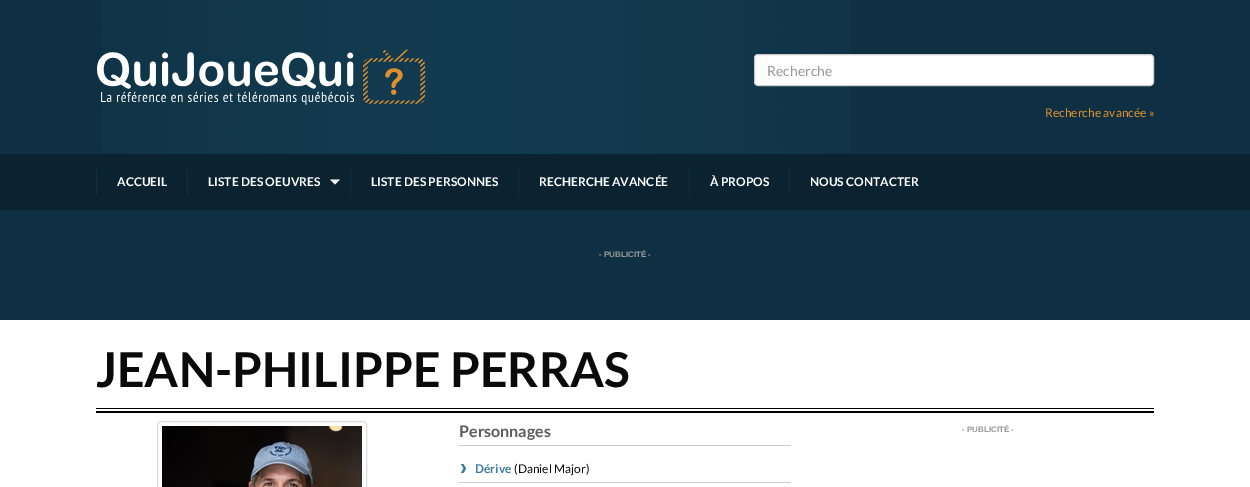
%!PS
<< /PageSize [1250 487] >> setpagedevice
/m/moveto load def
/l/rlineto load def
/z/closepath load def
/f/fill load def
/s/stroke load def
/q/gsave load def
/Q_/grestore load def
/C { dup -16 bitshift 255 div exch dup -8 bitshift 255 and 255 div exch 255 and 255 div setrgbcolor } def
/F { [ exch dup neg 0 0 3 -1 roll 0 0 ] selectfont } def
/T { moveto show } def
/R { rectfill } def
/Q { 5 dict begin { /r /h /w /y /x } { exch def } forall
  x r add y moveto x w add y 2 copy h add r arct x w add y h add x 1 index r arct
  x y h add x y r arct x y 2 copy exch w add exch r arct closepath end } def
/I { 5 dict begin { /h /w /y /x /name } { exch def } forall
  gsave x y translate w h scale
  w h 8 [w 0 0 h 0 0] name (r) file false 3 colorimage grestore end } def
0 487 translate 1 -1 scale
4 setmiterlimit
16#FFFFFF C
0 0 1250 487 R
16#0F3042 C
0 0 1250 320 R
(1.rgb) 102 0 749 154 I
(2.rgb) 97 49 329 56 I
16#FEFEFE C
754.5 54.5 399 31 3.5 Q q f Q_
16#CCCCCC C
s
/Lato-Regular 14 F
16#999999 C
(Recherche) 767 76 T
/Lato-Regular 12 F
16#E1912F C
(Recherche avancée ») 1045 117 T
16#0B2330 C
0 154 1250 56 R
16#0F3042 C
96 169 1 26 R
/Lato-Bold 12 F
16#FFFFFF C
(ACCUEIL) 117 186 T
16#0F3042 C
187 169 1 26 R
16#FFFFFF C
(LISTE DES OEUVRES) 208 186 T
330 179.5 m 10 0 l -5 5 l z f
16#0F3042 C
350 169 1 26 R
16#FFFFFF C
(LISTE DES PERSONNES) 371 186 T
16#0F3042 C
518 169 1 26 R
16#FFFFFF C
(RECHERCHE AVANCÉE) 539 186 T
16#0F3042 C
689 169 1 26 R
16#FFFFFF C
(À PROPOS) 710 186 T
16#0F3042 C
789 169 1 26 R
16#FFFFFF C
(NOUS CONTACTER) 810 186 T
/LiberationSans-Bold 8 F
16#999999 C
(- PUBLICITÉ -) 599 257 T
/Lato-Bold 48 F
16#0A0A0A C
(JEAN-PHILIPPE PERRAS) 96 387 T
16#000000 C
96 408 1058 1 R
96 411 1058 2 R
16#DDDDDD C
157.5 421.5 209 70 3.5 Q s
(3.rgb) 162 426 200 61 I
16#CCCCCC C
459 445 332 1 R
/Lato-Bold 16 F
16#5E5E5E C
(Personnages) 459 437 T
16#CCCCCC C
459 482 332 1 R
(4.rgb) 460 464 7 9 I
/Lato-Bold 12 F
16#3D7C9D C
(Dérive) 475 473 T
/Lato-Regular 12 F
16#0A0A0A C
(\(Daniel Major\)) 514 473 T
/LiberationSans-Bold 8 F
16#999999 C
(- PUBLICITÉ -) 962 432 T
showpage
